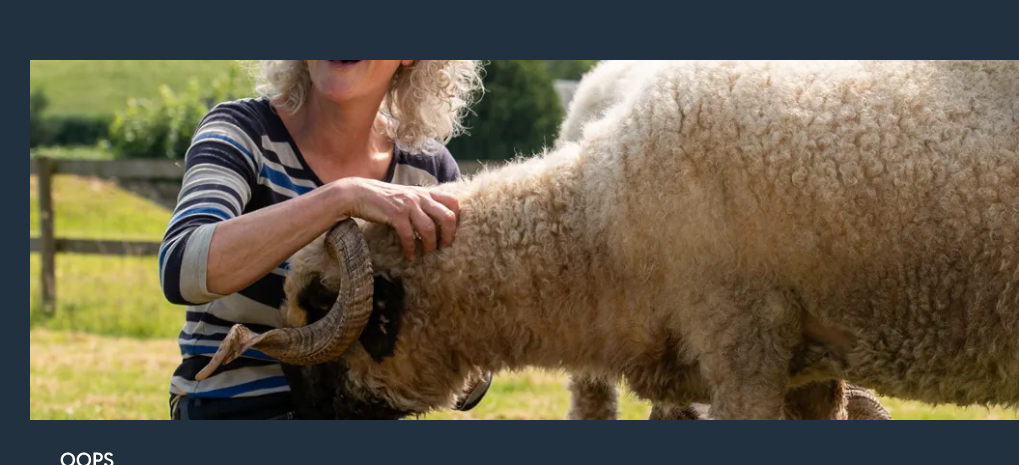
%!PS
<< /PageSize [1019 465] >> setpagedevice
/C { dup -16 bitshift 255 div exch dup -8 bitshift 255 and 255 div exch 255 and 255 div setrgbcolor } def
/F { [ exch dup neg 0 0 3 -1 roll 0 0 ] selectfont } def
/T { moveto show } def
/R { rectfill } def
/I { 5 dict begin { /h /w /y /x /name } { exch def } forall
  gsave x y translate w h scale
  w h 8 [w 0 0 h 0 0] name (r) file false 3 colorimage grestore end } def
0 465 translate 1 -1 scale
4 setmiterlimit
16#22313F C
0 0 1019 465 R
(1.rgb) 30 60 989 360 I
/RedditSans-SemiBold 20 F
16#FFFFFF C
(OOPS) 60 467 T
showpage
